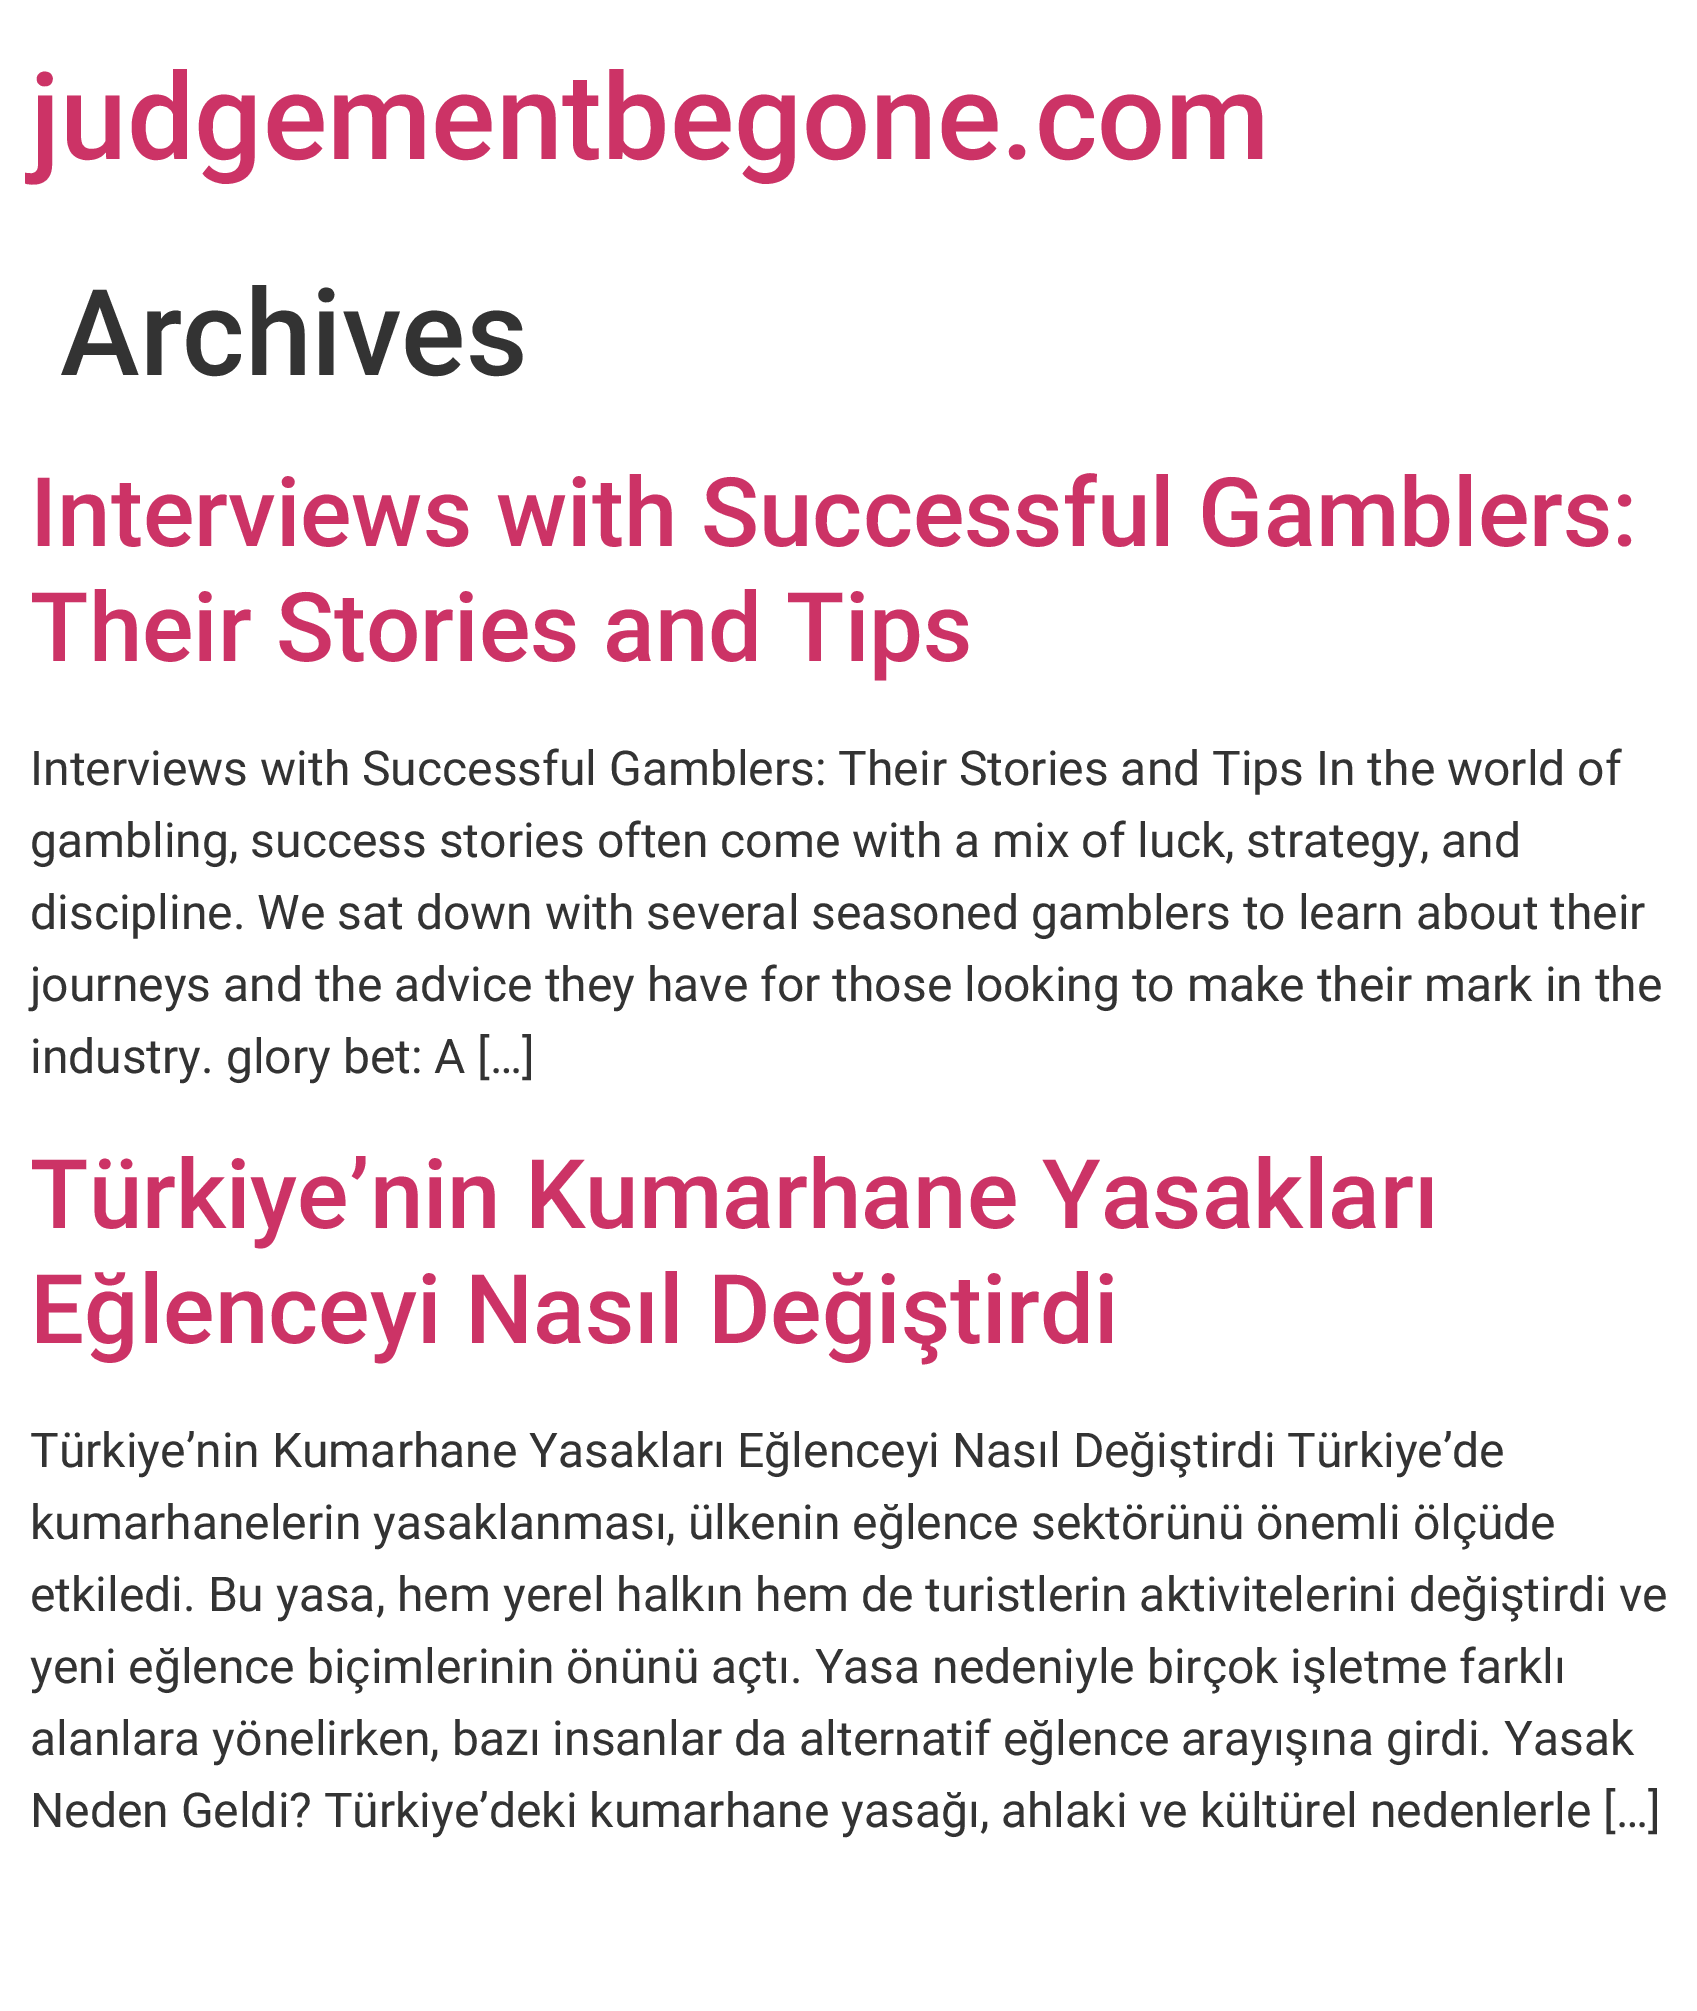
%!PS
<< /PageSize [1697 2011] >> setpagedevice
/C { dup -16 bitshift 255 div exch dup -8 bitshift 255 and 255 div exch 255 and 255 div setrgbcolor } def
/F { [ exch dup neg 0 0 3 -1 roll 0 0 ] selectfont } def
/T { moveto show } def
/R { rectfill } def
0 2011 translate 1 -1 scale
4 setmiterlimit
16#FFFFFF C
0 0 1697 2011 R
/Roboto-Medium 120 F
16#CC3366 C
(judgementbegone.com) 30 159 T
16#333333 C
(Archives) 60 375 T
/Roboto-Medium 96 F
16#CC3366 C
(Interviews with Successful Gamblers:) 30 546 T
(Their Stories and Tips) 30 661 T
/Roboto-Regular 48 F
16#333333 C
(Interviews with Successful Gamblers: Their Stories and Tips In the world of) 30 785 T
(gambling, success stories often come with a mix of luck, strategy, and) 30 857 T
(discipline. We sat down with several seasoned gamblers to learn about their) 30 929 T
(journeys and the advice they have for those looking to make their mark in the) 30 1001 T
(industry. glory bet: A […]) 30 1073 T
/Roboto-Medium 96 F
16#CC3366 C
(Türkiye’nin Kumarhane Yasakları) 30 1228 T
(Eğlenceyi Nasıl Değiştirdi) 30 1343 T
/Roboto-Regular 48 F
16#333333 C
(Türkiye’nin Kumarhane Yasakları Eğlenceyi Nasıl Değiştirdi Türkiye’de) 30 1467 T
(kumarhanelerin yasaklanması, ülkenin eğlence sektörünü önemli ölçüde) 30 1539 T
(etkiledi. Bu yasa, hem yerel halkın hem de turistlerin aktivitelerini değiştirdi ve) 30 1611 T
(yeni eğlence biçimlerinin önünü açtı. Yasa nedeniyle birçok işletme farklı) 30 1683 T
(alanlara yönelirken, bazı insanlar da alternatif eğlence arayışına girdi. Yasak) 30 1755 T
(Neden Geldi? Türkiye’deki kumarhane yasağı, ahlaki ve kültürel nedenlerle […]) 30 1827 T
showpage
